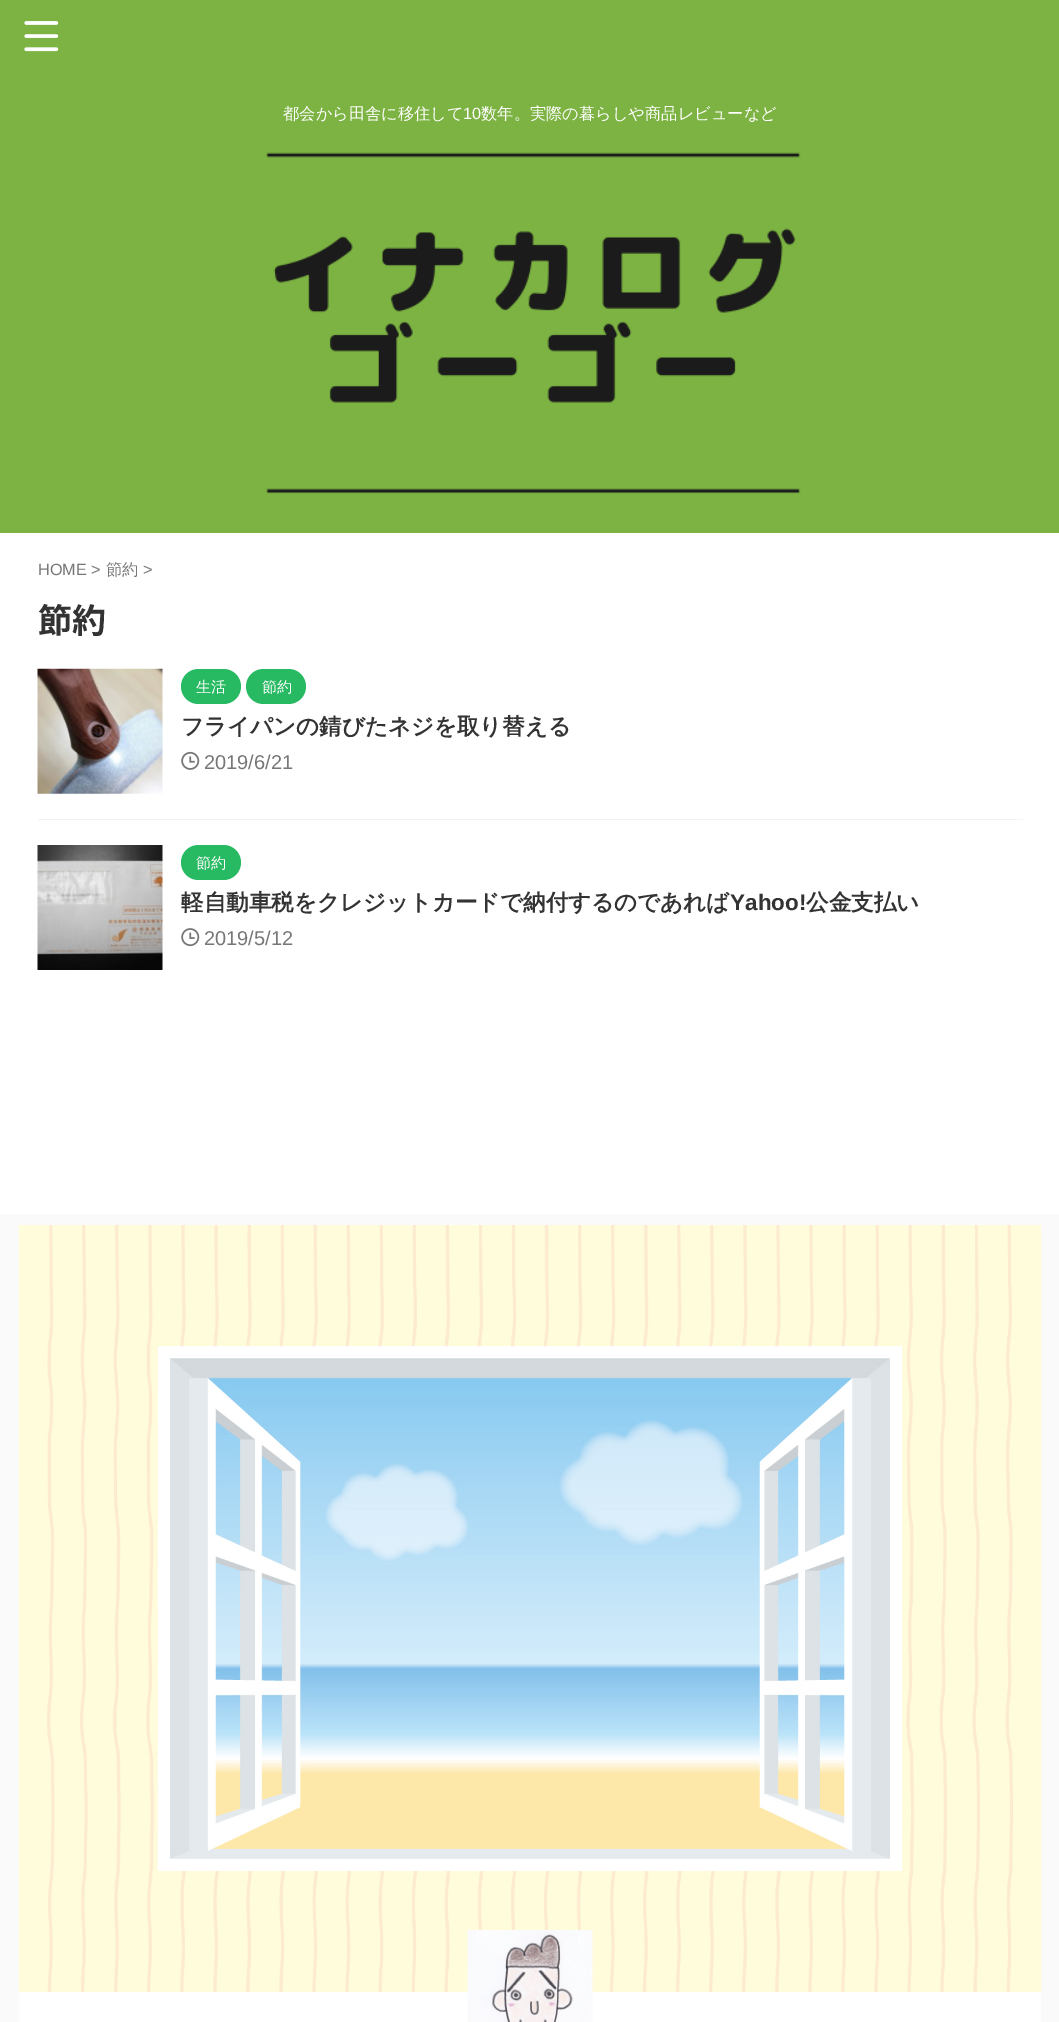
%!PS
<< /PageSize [1059 2022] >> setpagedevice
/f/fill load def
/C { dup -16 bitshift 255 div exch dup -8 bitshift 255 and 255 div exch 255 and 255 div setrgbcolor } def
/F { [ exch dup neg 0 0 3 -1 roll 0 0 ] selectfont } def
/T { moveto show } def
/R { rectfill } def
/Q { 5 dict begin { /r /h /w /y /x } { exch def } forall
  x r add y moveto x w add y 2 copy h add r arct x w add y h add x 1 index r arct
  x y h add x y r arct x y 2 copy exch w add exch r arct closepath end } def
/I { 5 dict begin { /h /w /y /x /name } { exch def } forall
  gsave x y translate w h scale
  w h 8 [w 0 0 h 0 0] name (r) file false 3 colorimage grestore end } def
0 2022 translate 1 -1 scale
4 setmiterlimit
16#FAFAFA C
0 0 1059 2022 R
16#7CB342 C
0 0 1059 533 R
(1.rgb) 24 21 35 31 I
/WenQuanYiZenHei-Medium 16.25 F
16#FFFFFF C
(都会から田舎に移住して) 283 119 T
/LiberationSans-Regular 16.25 F
(10) 463 119 T
/WenQuanYiZenHei-Medium 16.25 F
(数年。実際の暮らしや商品レビューなど) 481 119 T
(2.rgb) 266 152 535 342 I
0 533 1059 681 R
/LiberationSans-Regular 16.25 F
16#777777 C
(HOME >) 38 575 T
/WenQuanYiZenHei-Medium 16.25 F
(節約) 106 575 T
/LiberationSans-Regular 16.25 F
(>) 143 575 T
/NotoSansJP-Bold 34 F
16#333333 C
(節約) 38 633 T
16#F3F3F3 C
38 819 985 1 R
(3.rgb) 37 668 126 126 I
16#28BA62 C
181 669 60 35 17.5 Q f
/WenQuanYiZenHei-Medium 15 F
16#FFFFFF C
(生活) 196 692 T
16#28BA62 C
246 669 60 35 17.5 Q f
16#FFFFFF C
(節約) 262 692 T
/WenQuanYiZenHei-Bold 22.5 F
16#333333 C
(フライパンの錆びたネジを取り替える) 181 734 T
(4.rgb) 181 751 19 19 I
/LiberationSans-Regular 20 F
16#777777 C
(2019/6/21) 204 769 T
(5.rgb) 37 845 126 125 I
16#28BA62 C
181 845 60 35 17.5 Q f
/WenQuanYiZenHei-Medium 15 F
16#FFFFFF C
(節約) 196 868 T
/WenQuanYiZenHei-Bold 22.5 F
16#333333 C
(軽自動車税をクレジットカードで納付するのであれば) 181 910 T
/LiberationSans-Bold 22.5 F
(Yahoo!) 730 910 T
/WenQuanYiZenHei-Bold 22.5 F
(公金支払い) 806 910 T
(6.rgb) 181 928 19 19 I
/LiberationSans-Regular 20 F
16#777777 C
(2019/5/12) 204 945 T
16#FFFFFF C
19 1992 1022 30 R
(7.rgb) 18 1225 1024 768 I
(8.rgb) 467 1930 126 92 I
showpage
